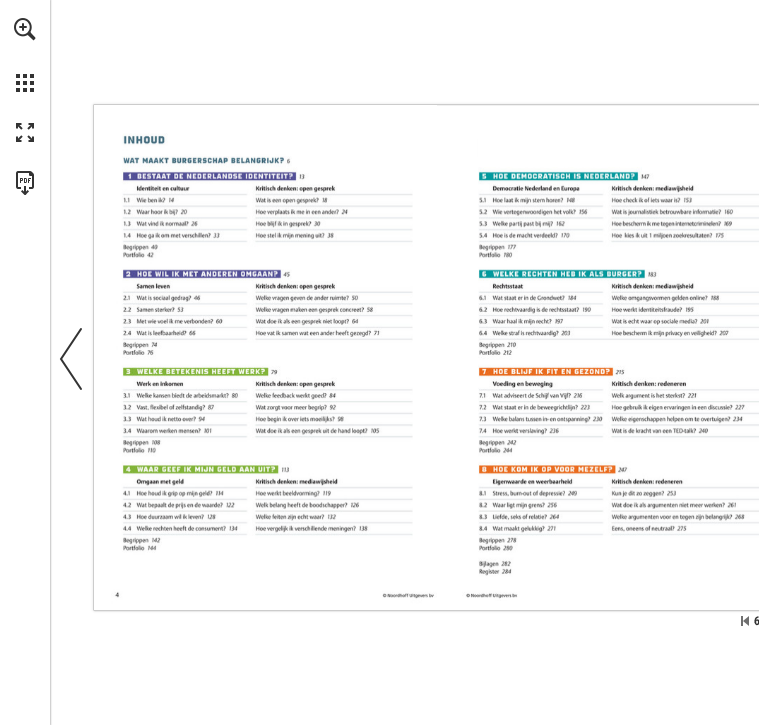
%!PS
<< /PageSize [759 725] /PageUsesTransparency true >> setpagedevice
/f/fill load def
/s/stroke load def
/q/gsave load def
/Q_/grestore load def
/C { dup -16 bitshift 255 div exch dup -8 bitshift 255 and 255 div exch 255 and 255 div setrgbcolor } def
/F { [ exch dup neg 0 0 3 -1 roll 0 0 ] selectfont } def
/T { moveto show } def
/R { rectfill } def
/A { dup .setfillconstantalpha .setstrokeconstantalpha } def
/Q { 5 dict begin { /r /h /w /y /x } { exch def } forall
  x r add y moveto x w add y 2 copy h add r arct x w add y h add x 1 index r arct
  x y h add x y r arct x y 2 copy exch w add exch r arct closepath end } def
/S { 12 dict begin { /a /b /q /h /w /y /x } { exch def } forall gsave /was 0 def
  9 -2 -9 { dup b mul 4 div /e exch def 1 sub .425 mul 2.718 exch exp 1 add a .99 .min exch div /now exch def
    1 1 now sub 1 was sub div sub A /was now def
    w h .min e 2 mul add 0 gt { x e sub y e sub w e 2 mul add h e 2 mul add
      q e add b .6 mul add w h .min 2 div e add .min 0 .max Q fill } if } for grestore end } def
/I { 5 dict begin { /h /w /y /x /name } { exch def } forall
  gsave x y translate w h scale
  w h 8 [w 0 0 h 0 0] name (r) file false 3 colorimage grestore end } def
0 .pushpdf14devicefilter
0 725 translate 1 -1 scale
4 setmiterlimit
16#FFFFFF C
0 0 759 725 R
16#000000 C
1 0 50 725 0 .5 .2 S
16#FFFFFF C
0 0 50 725 R
(1.rgb) 14 18 22 23 I
(2.rgb) 16 74 18 18 I
(3.rgb) 16 123 18 19 I
(4.rgb) 16 171 18 24 I
16#121212 C
92 103 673 509 3 1 .05 S
16#FFFFFF C
93.5 104.5 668 506 1.5 Q q f Q_
16#CCCCCC C
s
(5.rgb) 59 328 23 62 I
(6.rgb) 94 105 343 505 I
(7.rgb) 115 133 298 465 I
(8.rgb) 462 138 297 463 I
(9.rgb) 478 138 281 458 I
(10.rgb) 741 616 8 10 I
/RobotoCondensed-Bold 12 F
16#333333 C
(6) 754 625 T
.poppdf14devicefilter showpage
